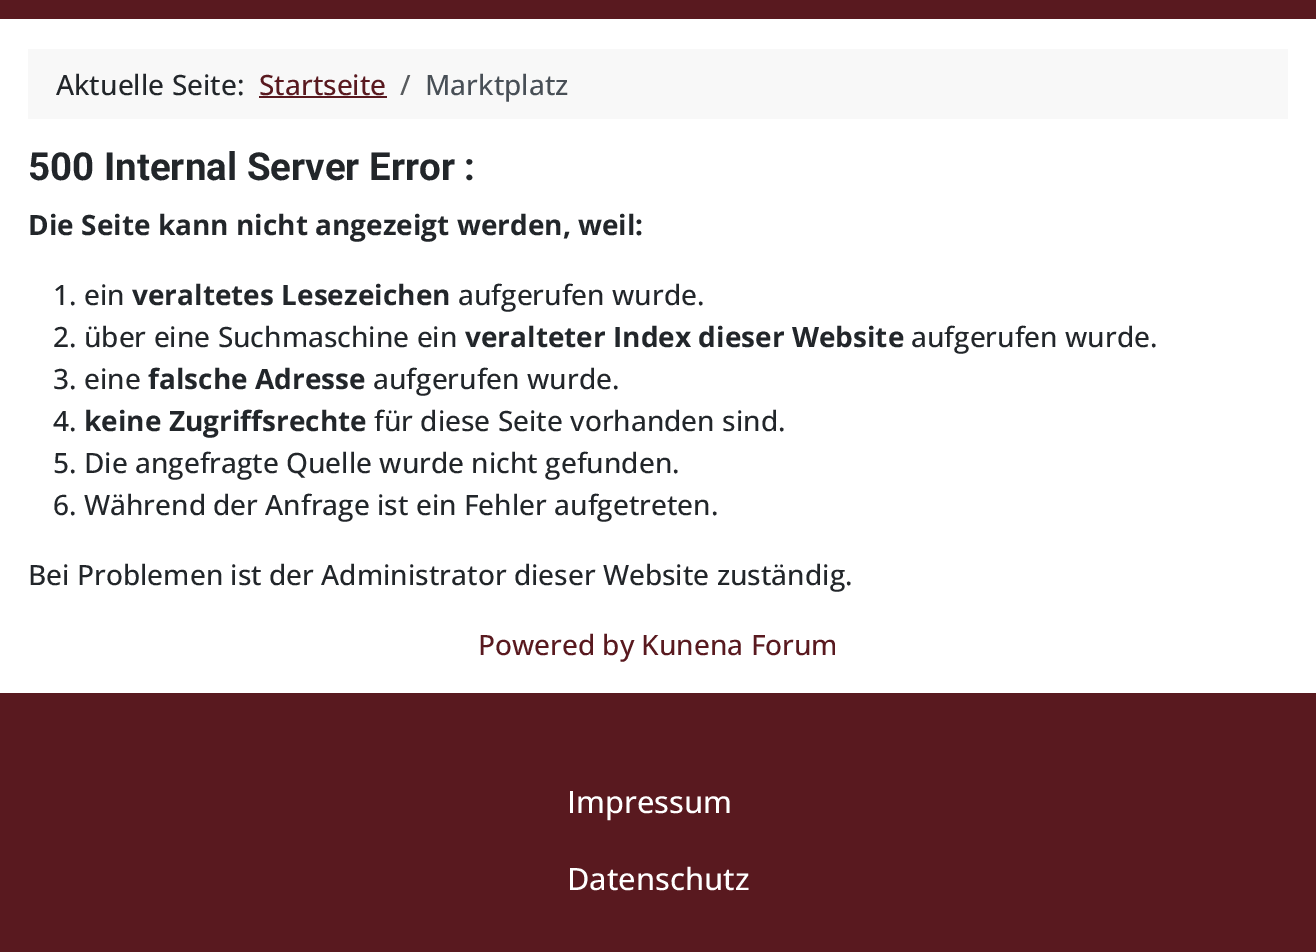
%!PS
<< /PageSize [1316 952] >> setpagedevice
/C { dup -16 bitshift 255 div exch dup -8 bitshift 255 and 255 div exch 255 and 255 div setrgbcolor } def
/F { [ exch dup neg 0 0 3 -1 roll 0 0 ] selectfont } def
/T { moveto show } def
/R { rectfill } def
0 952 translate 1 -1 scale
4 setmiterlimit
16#FFFFFF C
0 0 1316 952 R
16#59191F C
0 0 1316 19 R
16#F8F8F8 C
28 49 1260 70 R
/OpenSans-Medium 28 F
16#22262A C
(Aktuelle Seite:) 56 95 T
16#59191F C
(Startseite) 259 95 T
259 96 128 2 R
16#585B5E C
(/) 400 95 T
16#484F56 C
(Marktplatz) 425 95 T
/Roboto-Bold 38.5 F
16#22262A C
(500 Internal Server Error :) 28 180 T
/OpenSans-Bold 28 F
(Die Seite kann nicht angezeigt werden, weil:) 28 235 T
/OpenSans-Medium 28 F
(1. ein) 53 305 T
/OpenSans-Bold 28 F
(veraltetes Lesezeichen) 132 305 T
/OpenSans-Medium 28 F
(aufgerufen wurde.) 458 305 T
(2. über eine Suchmaschine ein) 53 347 T
/OpenSans-Bold 28 F
(veralteter Index dieser Website) 465 347 T
/OpenSans-Medium 28 F
(aufgerufen wurde.) 911 347 T
(3. eine) 53 389 T
/OpenSans-Bold 28 F
(falsche Adresse) 148 389 T
/OpenSans-Medium 28 F
(aufgerufen wurde.) 373 389 T
(4.) 53 431 T
/OpenSans-Bold 28 F
(keine Zugriffsrechte) 84 431 T
/OpenSans-Medium 28 F
(für diese Seite vorhanden sind.) 374 431 T
(5. Die angefragte Quelle wurde nicht gefunden.) 53 473 T
(6. Während der Anfrage ist ein Fehler aufgetreten.) 53 515 T
(Bei Problemen ist der Administrator dieser Website zuständig.) 28 585 T
16#59191F C
(Powered by Kunena Forum) 478 655 T
0 693 1316 259 R
/OpenSans-Medium 30.75 F
16#FFFFFF C
(Impressum) 567 813 T
(Datenschutz) 567 890 T
showpage
